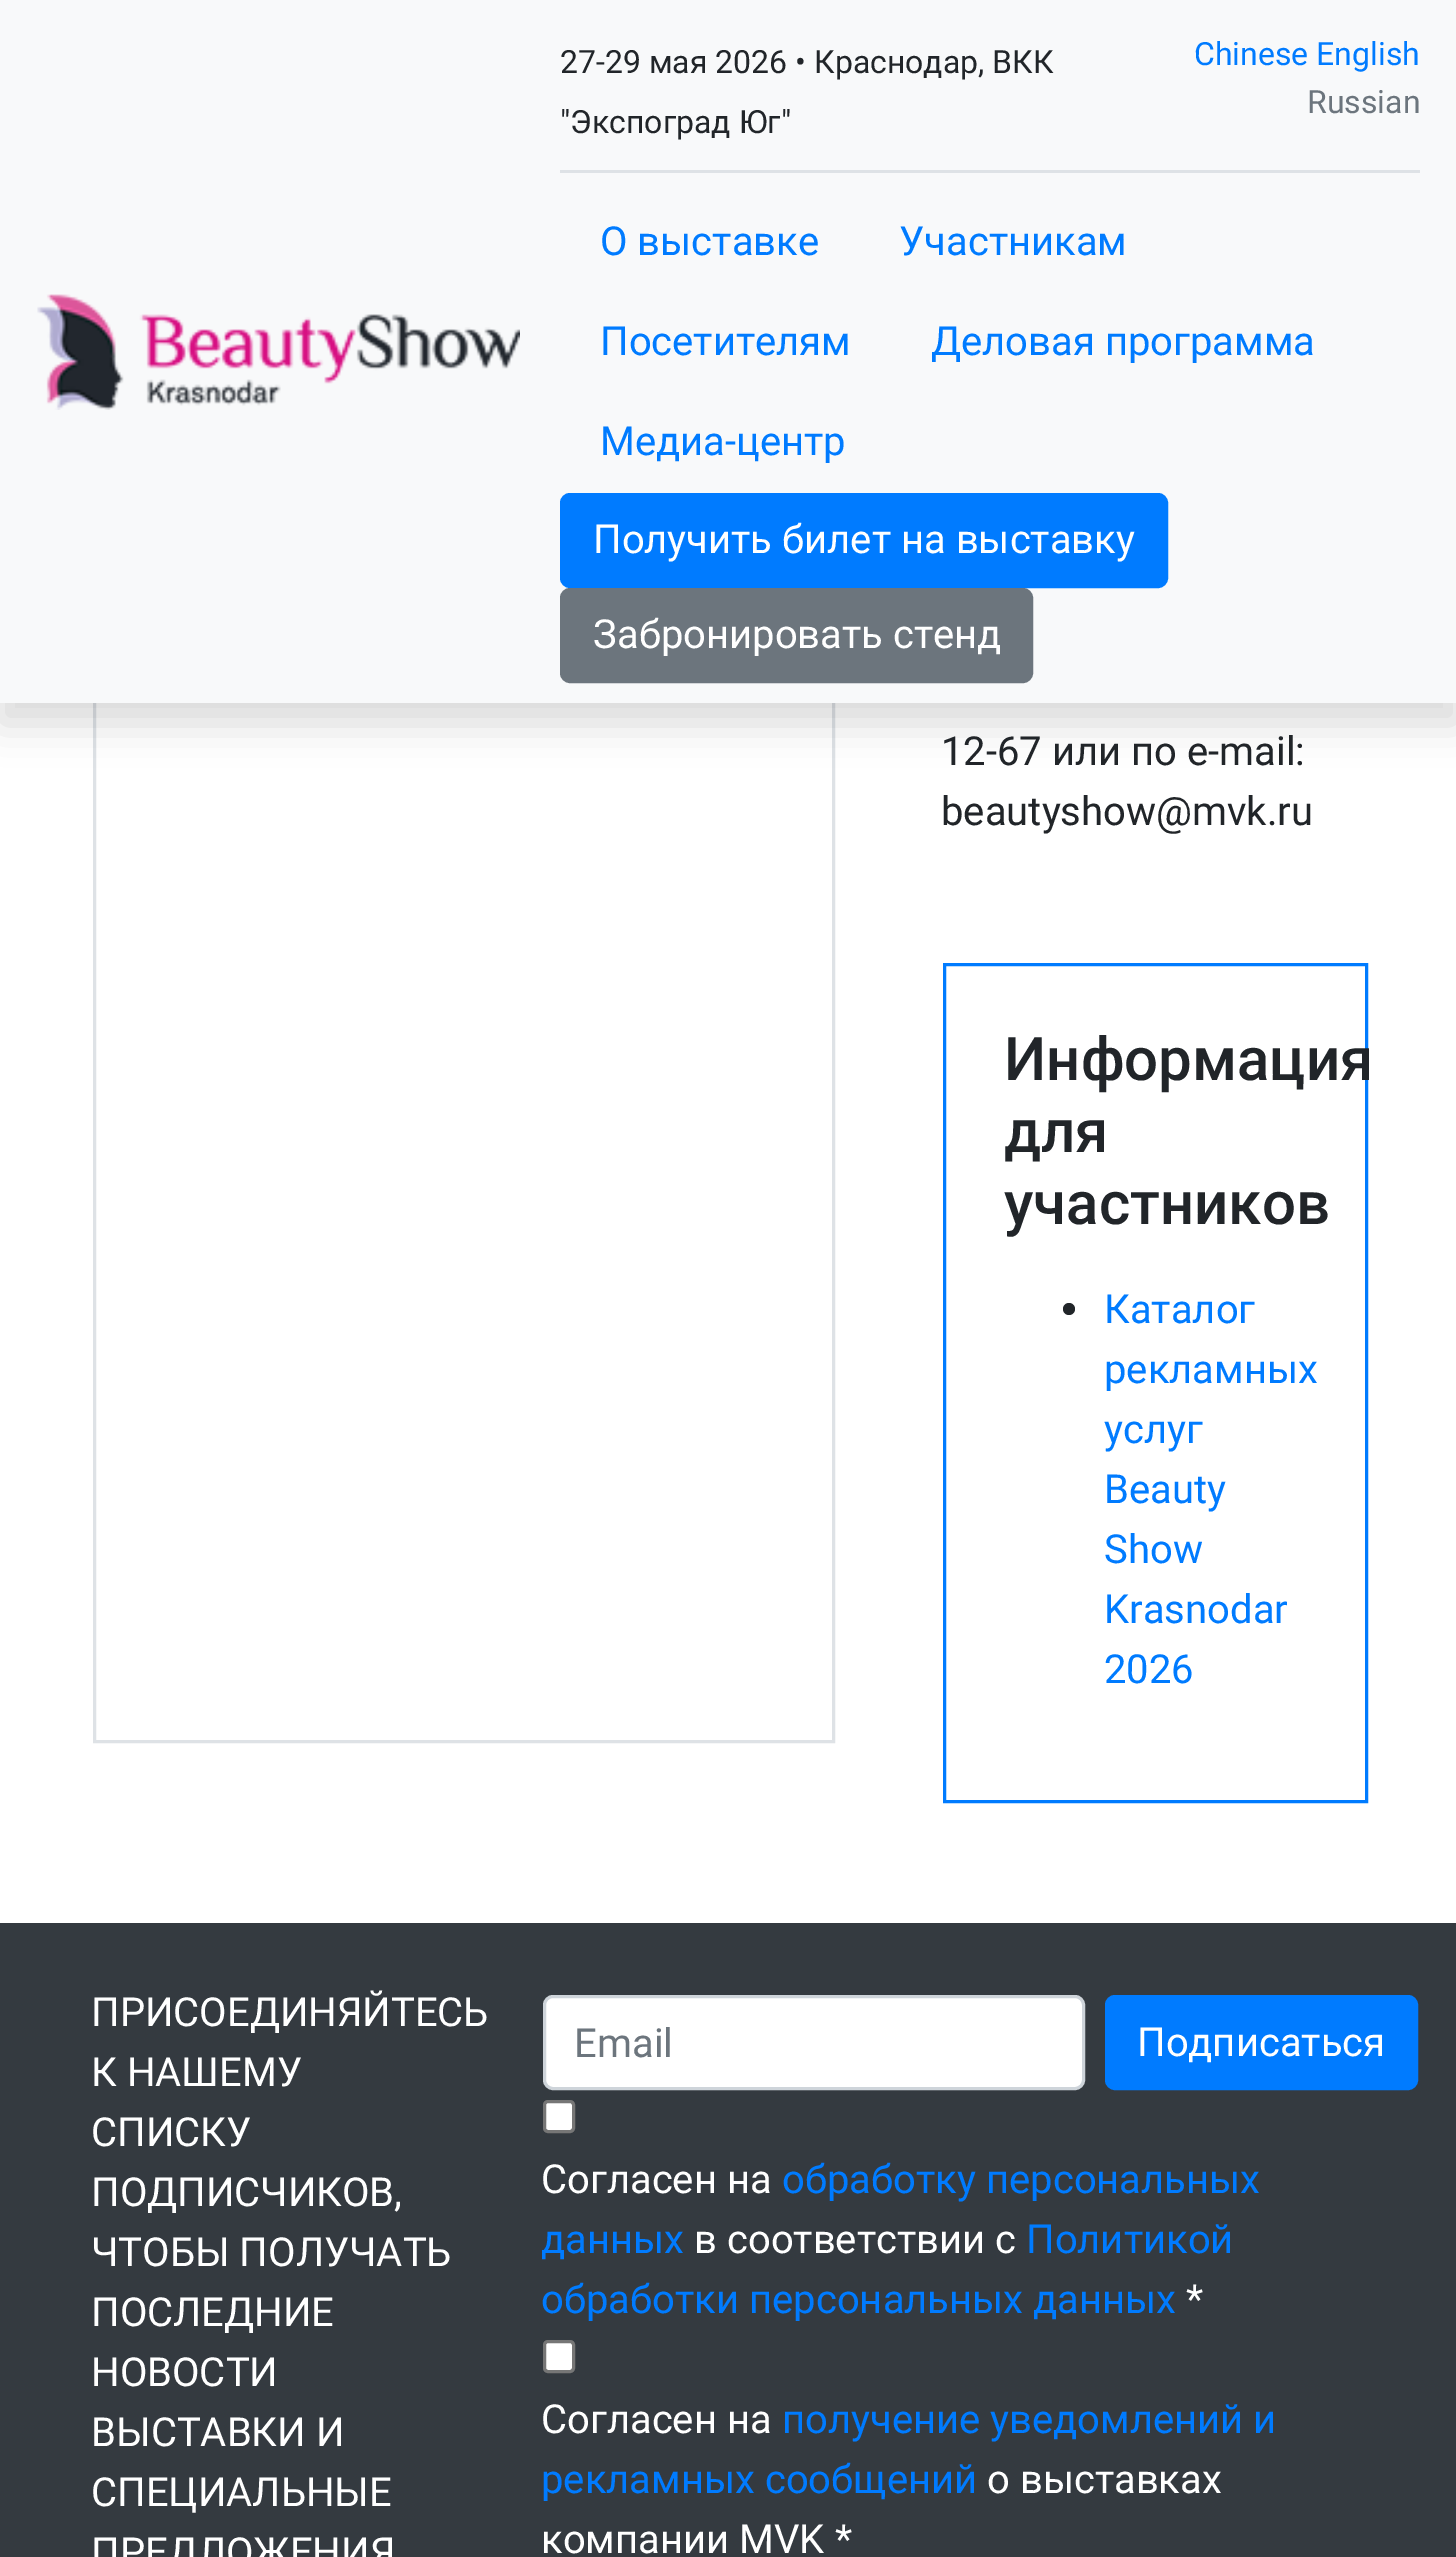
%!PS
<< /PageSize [1456 2557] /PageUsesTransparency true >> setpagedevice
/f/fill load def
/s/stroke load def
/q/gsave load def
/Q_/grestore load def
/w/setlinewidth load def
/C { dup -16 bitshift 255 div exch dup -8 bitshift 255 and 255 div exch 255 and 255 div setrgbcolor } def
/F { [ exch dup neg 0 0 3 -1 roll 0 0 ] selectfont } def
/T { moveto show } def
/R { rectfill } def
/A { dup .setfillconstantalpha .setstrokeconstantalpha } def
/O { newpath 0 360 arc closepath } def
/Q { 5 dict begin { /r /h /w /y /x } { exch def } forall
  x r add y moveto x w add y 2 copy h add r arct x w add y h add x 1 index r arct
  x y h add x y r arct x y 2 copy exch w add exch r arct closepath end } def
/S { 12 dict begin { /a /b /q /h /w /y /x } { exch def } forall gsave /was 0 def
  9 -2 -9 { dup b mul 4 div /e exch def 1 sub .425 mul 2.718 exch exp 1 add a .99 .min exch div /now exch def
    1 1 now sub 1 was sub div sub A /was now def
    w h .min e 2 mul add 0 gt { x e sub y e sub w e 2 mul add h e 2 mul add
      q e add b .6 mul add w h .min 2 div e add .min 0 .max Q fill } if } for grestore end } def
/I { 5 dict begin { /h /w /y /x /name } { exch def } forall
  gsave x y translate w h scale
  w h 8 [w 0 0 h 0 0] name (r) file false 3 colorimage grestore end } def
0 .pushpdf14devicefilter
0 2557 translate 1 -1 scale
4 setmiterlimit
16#FFFFFF C
0 0 1456 2557 R
16#DEE2E6 C
3 w
94.5 -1.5 739 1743 rectstroke
16#000000 C
0 20 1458 703 0 20 .15 S
16#F8F9FA C
0 0 1456 703 R
(1.rgb) 37 294 483 116 I
16#DEE2E6 C
560 170 860 3 R
/Roboto-Regular 32 F
16#212529 C
(27-29 мая 2026 • Краснодар, ВКК) 560 73 T
("Экспоград Юг") 560 133 T
16#007BFF C
(Chinese English) 1194 65 T
16#6C757D C
(Russian) 1307 113 T
/Roboto-Regular 40 F
16#007BFF C
(О выставке) 600 255 T
(Участникам) 899 255 T
(Посетителям) 600 355 T
(Деловая программа) 931 355 T
(Медиа-центр) 600 455 T
561.5 494.5 605 92 8.5 Q q f Q_
s
16#FFFFFF C
(Получить билет на выставку) 593 553 T
16#6C757D C
561.5 589.5 470 92 8.5 Q q f Q_
s
16#FFFFFF C
(Забронировать стенд) 593 648 T
16#212529 C
(12-67 или по e-mail:) 941 765 T
(beautyshow@mvk.ru) 941 825 T
16#007BFF C
944.5 964.5 422 837 rectstroke
/Roboto-Medium 60 F
16#212529 C
(Информация) 1004 1080 T
(для) 1004 1152 T
(участников) 1004 1224 T
1069 1309 6 O f
/Roboto-Regular 40 F
16#007BFF C
(Каталог) 1104 1323 T
(рекламных) 1104 1383 T
(услуг) 1104 1443 T
(Beauty) 1104 1503 T
(Show) 1104 1563 T
(Krasnodar) 1104 1623 T
(2026) 1104 1683 T
16#343A40 C
0 1923 1456 634 R
16#FFFFFF C
(ПРИСОЕДИНЯЙТЕСЬ) 91 2026 T
(К НАШЕМУ) 91 2086 T
(СПИСКУ) 91 2146 T
(ПОДПИСЧИКОВ,) 91 2206 T
(ЧТОБЫ ПОЛУЧАТЬ) 91 2266 T
(ПОСЛЕДНИЕ) 91 2326 T
(НОВОСТИ) 91 2386 T
(ВЫСТАВКИ И) 91 2446 T
(СПЕЦИАЛЬНЫЕ) 91 2506 T
(ПРЕДЛОЖЕНИЯ) 91 2566 T
544.5 1996.5 539 92 8.5 Q q f Q_
16#CED4DA C
s
16#6C757D C
(Email) 574 2057 T
16#007BFF C
1106.5 1996.5 310 92 8.5 Q q f Q_
s
16#FFFFFF C
(Подписаться) 1137 2056 T
544.5 2101.5 29 30 3.5 Q q f Q_
16#767676 C
s
16#FFFFFF C
(Согласен на) 541 2193 T
16#007BFF C
(обработку персональных) 782 2193 T
(данных) 541 2253 T
16#FFFFFF C
(в соответствии с) 694 2253 T
16#007BFF C
(Политикой) 1026 2253 T
(обработки персональных данных) 541 2313 T
16#FFFFFF C
(*) 1186 2313 T
544.5 2341.5 29 30 3.5 Q q f Q_
16#767676 C
s
16#FFFFFF C
(Согласен на) 541 2433 T
16#007BFF C
(получение уведомлений и) 782 2433 T
(рекламных сообщений) 541 2493 T
16#FFFFFF C
(о выставках) 987 2493 T
(компании MVK *) 541 2553 T
.poppdf14devicefilter showpage
